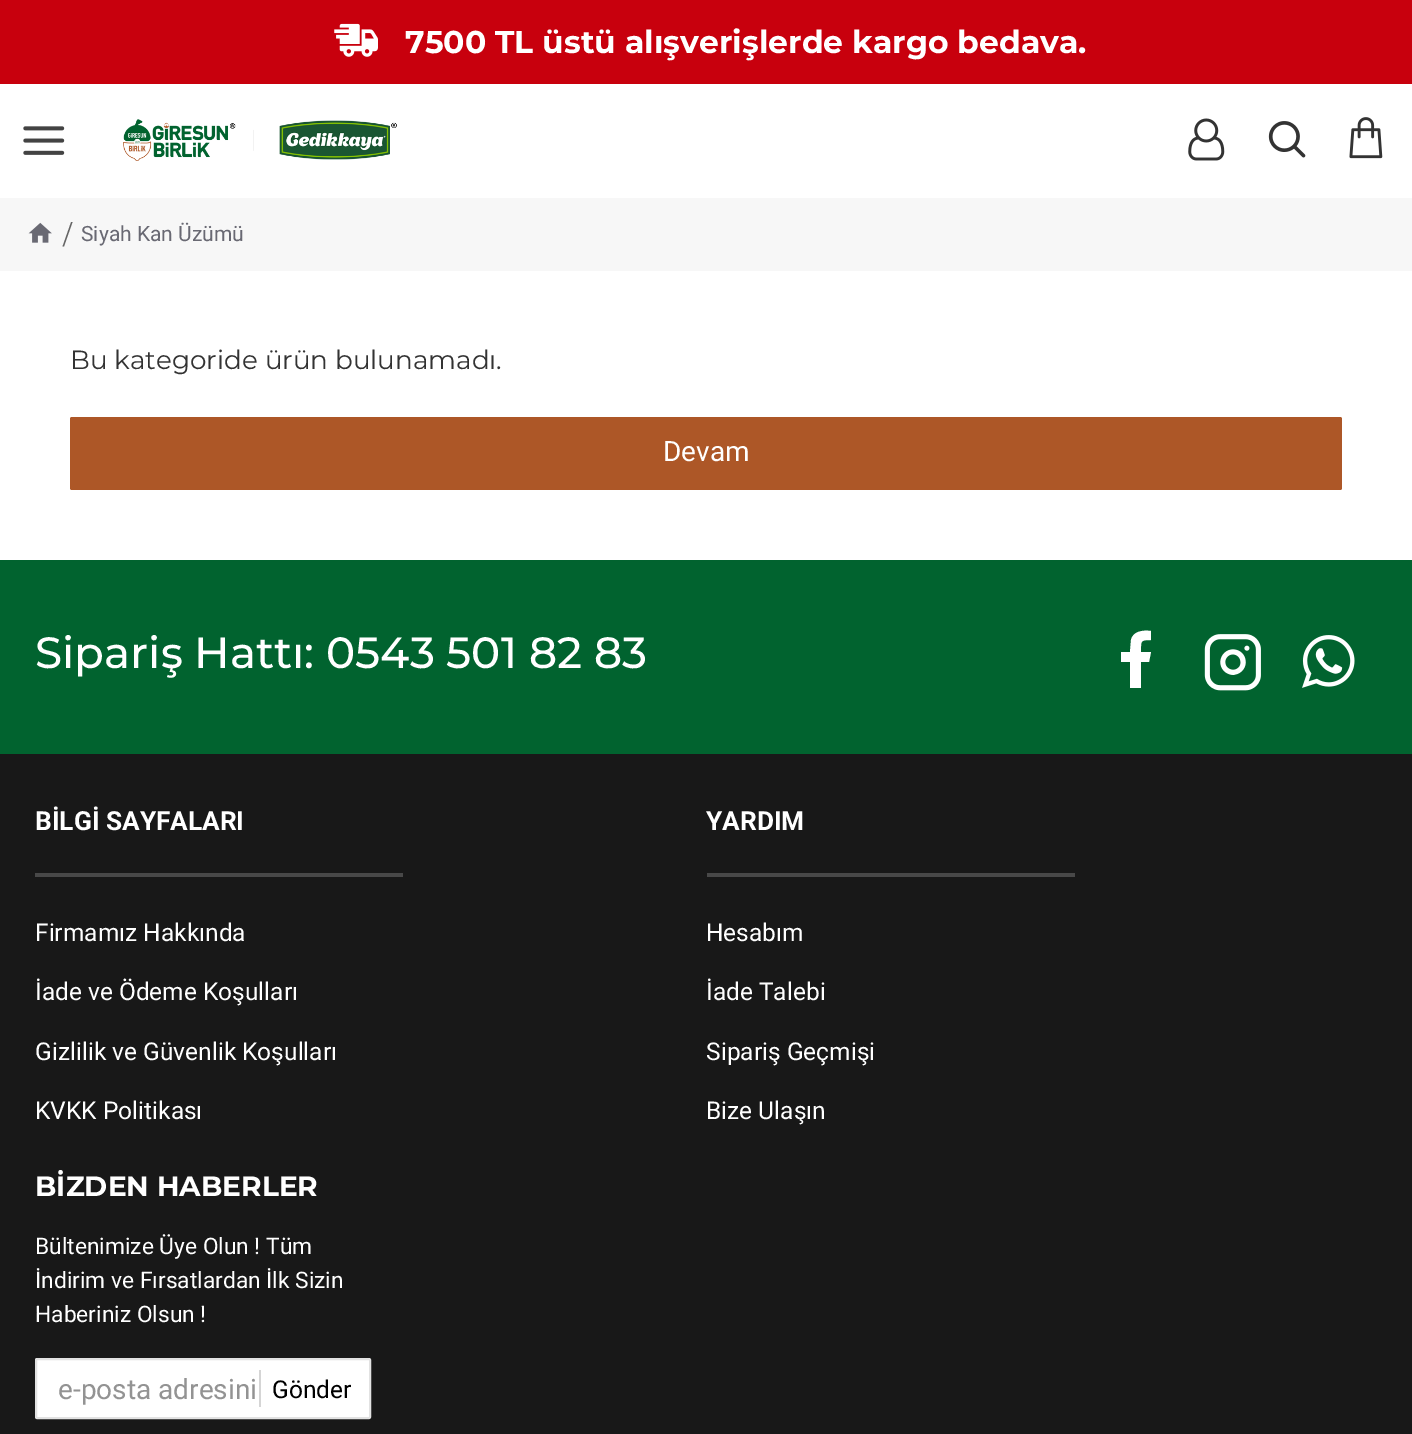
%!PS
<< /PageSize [1412 1434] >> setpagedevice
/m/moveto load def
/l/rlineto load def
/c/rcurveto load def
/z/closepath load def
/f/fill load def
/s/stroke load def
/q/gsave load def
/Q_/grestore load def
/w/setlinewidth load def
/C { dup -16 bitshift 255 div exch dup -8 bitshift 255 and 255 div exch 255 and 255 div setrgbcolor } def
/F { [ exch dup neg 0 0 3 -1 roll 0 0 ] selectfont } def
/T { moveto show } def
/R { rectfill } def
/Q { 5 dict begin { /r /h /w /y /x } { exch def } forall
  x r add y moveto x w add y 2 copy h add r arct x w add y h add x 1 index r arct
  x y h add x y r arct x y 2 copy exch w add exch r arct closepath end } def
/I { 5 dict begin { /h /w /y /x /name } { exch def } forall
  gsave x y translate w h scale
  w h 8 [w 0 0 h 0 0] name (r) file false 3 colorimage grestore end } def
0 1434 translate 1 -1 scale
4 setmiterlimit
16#FFFFFF C
0 0 1412 1434 R
16#C8000D C
0 0 1412 84 R
(1.rgb) 334 23 44 34 I
/Montserrat-Bold 31.5 F
16#FFFFFF C
(7500 TL üstü alışverişlerde kargo bedava.) 405 53 T
(2.rgb) 23 126 42 29 I
(3.rgb) 1188 118 37 43 I
(4.rgb) 1268 121 38 37 I
(5.rgb) 1349 117 34 42 I
(6.rgb) 123 119 274 42 I
16#F7F7F7 C
0 198 1412 73 R
(7.rgb) 28 222 24 21 I
/Montserrat-Regular 26.25 F
16#656565 C
(/) 63 244 T
/Roboto-Regular 21 F
16#696973 C
(Siyah Kan Üzümü) 81 241 T
/Montserrat-Regular 26.25 F
16#333333 C
(Bu kategoride ürün bulunamadı.) 70 369 T
16#AD5727 C
70 417 1272 73 2 Q f
/Roboto-Regular 28 F
16#FFFFFF C
(Devam) 663 461 T
16#01632F C
0 560 1412 194 R
/Montserrat-Medium 43.75 F
16#FFFFFF C
(Sipariş Hattı: 0543 501 82 83) 35 668 T
1151 631 m 0 9 l -11 0 -10 1 -10 12 c 10 0 l -2 10 l -8 0 l 0 26 l -11 0 l 0 -26 l -9 0 l 0 -10 l 9 0 l 1 -12 l 2 -9 12 -10 20 -9 c z f
(8.rgb) 1204 634 57 57 I
(9.rgb) 1302 635 53 53 I
16#181818 C
0 754 1412 680 R
/Roboto-Bold 26.25 F
16#FFFFFF C
(BİLGİ SAYFALARI) 35 830 T
16#484848 C
35 873 368 4 R
/Roboto-Regular 24.5 F
16#FFFFFF C
(Firmamız Hakkında) 35 941 T
(İade ve Ödeme Koşulları) 35 1000 T
(Gizlilik ve Güvenlik Koşulları) 35 1060 T
(KVKK Politikası) 35 1119 T
/Roboto-Bold 26.25 F
(YARDIM) 706 830 T
16#484848 C
707 873 368 4 R
/Roboto-Regular 24.5 F
16#FFFFFF C
(Hesabım) 706 941 T
(İade Talebi) 706 1000 T
(Sipariş Geçmişi) 706 1060 T
(Bize Ulaşın) 706 1119 T
/Montserrat-Bold 28 F
(BİZDEN HABERLER) 35 1196 T
/Roboto-Regular 22.75 F
(Bültenimize Üye Olun ! Tüm) 35 1254 T
(İndirim ve Fırsatlardan İlk Sizin) 35 1288 T
(Haberiniz Olsun !) 35 1322 T
36 1359 334 59 1 Q q f Q_
16#E2E2E2 C
2 w
s
/Roboto-Regular 28 F
16#939393 C
(e-posta adresini) 58 1399 T
16#D5D5D5 C
259 1370 2 37 R
/Roboto-Regular 24.5 F
16#000000 C
(Gönder) 272 1398 T
showpage
